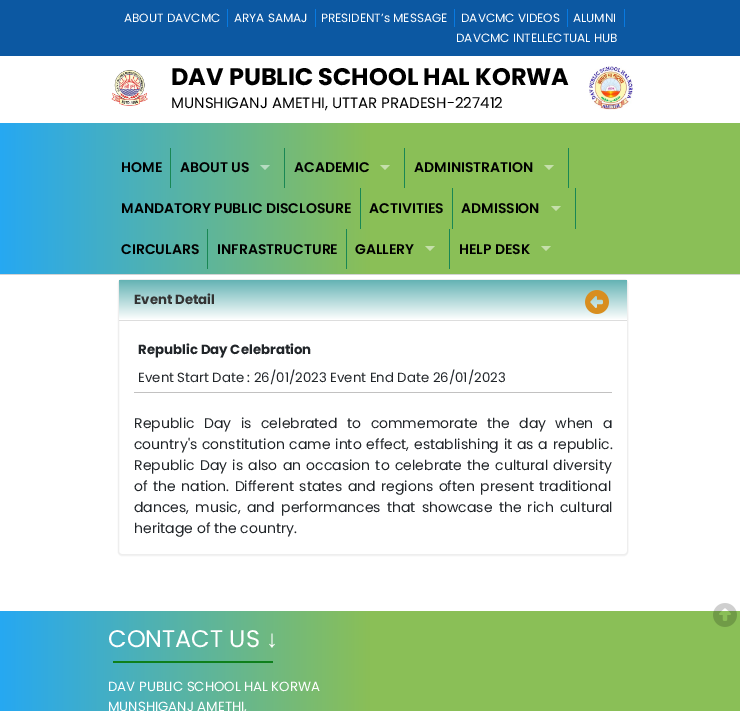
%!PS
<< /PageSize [740 711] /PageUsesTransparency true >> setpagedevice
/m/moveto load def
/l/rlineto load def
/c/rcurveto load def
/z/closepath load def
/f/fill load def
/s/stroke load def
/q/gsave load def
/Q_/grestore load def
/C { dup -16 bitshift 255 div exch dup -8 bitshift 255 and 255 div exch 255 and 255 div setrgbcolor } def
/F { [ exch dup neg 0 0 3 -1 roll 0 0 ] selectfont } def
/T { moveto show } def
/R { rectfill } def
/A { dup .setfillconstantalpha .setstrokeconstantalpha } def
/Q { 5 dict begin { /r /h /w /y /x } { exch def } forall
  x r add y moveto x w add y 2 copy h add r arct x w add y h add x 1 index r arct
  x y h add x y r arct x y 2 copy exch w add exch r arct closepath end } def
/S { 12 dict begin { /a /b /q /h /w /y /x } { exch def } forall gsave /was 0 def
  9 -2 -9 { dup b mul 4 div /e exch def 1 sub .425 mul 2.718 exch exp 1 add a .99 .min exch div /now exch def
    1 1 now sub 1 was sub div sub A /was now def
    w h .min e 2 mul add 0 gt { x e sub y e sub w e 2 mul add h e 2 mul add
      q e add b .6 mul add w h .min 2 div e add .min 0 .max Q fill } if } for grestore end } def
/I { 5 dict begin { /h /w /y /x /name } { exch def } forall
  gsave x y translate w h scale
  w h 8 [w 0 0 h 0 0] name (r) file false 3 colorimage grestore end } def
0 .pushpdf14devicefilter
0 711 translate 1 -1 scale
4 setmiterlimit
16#FFFFFF C
0 0 740 711 R
16#0C58A2 C
0 0 740 56 R
16#087AE1 C
227 9 1 18 R
/Poppins-Regular 12 F
16#FFFFFF C
(ABOUT DAVCMC) 124 22 T
16#087AE1 C
315 9 1 18 R
16#FFFFFF C
(ARYA SAMAJ) 234 22 T
16#087AE1 C
454 9 1 18 R
16#FFFFFF C
(PRESIDENT’s MESSAGE) 321 22 T
16#087AE1 C
567 9 1 18 R
16#FFFFFF C
(DAVCMC VIDEOS) 461 22 T
16#087AE1 C
624 9 1 18 R
16#FFFFFF C
(ALUMNI) 573 22 T
(DAVCMC INTELLECTUAL HUB) 456 42 T
(1.rgb) 111 70 37 36 I
/Poppins-Bold 24 F
16#000000 C
(DAV PUBLIC SCHOOL HAL KORWA) 171 85 T
/Poppins-Regular 15 F
(MUNSHIGANJ AMETHI, UTTAR PRADESH-227412) 171 108 T
(2.rgb) 589 66 44 44 I
q 0 123 m 740 0 l 0 151 l -740 0 l z clip newpath
<< /ShadingType 2 /ColorSpace /DeviceRGB /Coords [0 199 740 198] /Extend [true true] /Function << /FunctionType 3 /Domain [0 1] /Functions [<< /FunctionType 2 /Domain [0 1] /C0 [.149 .659 .949] /C1 [.541 .749 .341] /N 1 >> << /FunctionType 2 /Domain [0 1] /C0 [.541 .749 .341] /C1 [.541 .749 .341] /N 1 >>] /Bounds [.5] /Encode [0 1 0 1] >> >> shfill Q_
16#D3D3D4 C
0 274 740 1 R
16#198754 C
170 148 1 40 R
/Poppins-SemiBold 14 F
16#000000 C
(HOME) 121 172 T
16#198754 C
284 148 1 40 R
16#000000 C
(ABOUT US) 180 172 T
16#B6DCC1 C
260 165 m 10 0 l -5 5 l z f
16#198754 C
404 148 1 40 R
16#000000 C
(ACADEMIC) 294 172 T
16#C5DFAB C
380 165 m 10 0 l -5 5 l z f
16#198754 C
568 148 1 40 R
16#000000 C
(ADMINISTRATION) 414 172 T
16#C5DFAB C
544 165 m 10 0 l -5 5 l z f
16#198754 C
360 188 1 41 R
16#000000 C
(MANDATORY PUBLIC DISCLOSURE) 121 213 T
16#198754 C
452 188 1 41 R
16#000000 C
(ACTIVITIES) 369 213 T
16#198754 C
575 188 1 41 R
16#000000 C
(ADMISSION) 461 213 T
16#C5DFAB C
551 206 m 10 0 l -5 5 l z f
16#198754 C
207 229 1 40 R
16#000000 C
(CIRCULARS) 121 254 T
16#198754 C
346 229 1 40 R
16#000000 C
(INFRASTRUCTURE) 217 254 T
16#198754 C
449 229 1 40 R
16#000000 C
(GALLERY) 355 254 T
16#C5DFAB C
425 246 m 10 0 l -5 5 l z f
16#000000 C
(HELP DESK) 459 254 T
16#C5DFAB C
541 246 m 10 0 l -5 5 l z f
16#000000 C
118 280 510 276 4 .5 .05 S
16#FFFFFF C
118.5 279.5 509 275 3.5 Q q f Q_
16#EEEEEE C
s
q 122 280 m 502 0 l 1.5 0 3 1.5 3 3 c 0 37 l -508 0 l 0 -37 l 0 -1.5 1.5 -3 3 -3 c z clip newpath
<< /ShadingType 2 /ColorSpace /DeviceRGB /Coords [373 280 373 320] /Extend [true true] /Function << /FunctionType 2 /Domain [0 1] /C0 [.392 .702 .706] /C1 [1 1 1] /N 1 >> >> shfill Q_
16#DDDDDD C
119 320 508 1 R
/Poppins-Bold 13.3 F
16#333333 C
(Event Detail) 134 304 T
(3.rgb) 585 290 24 24 I
16#212529 C
(Republic Day Celebration) 138 354 T
/Poppins-Regular 13.3 F
(Event Start Date : 26/01/2023 Event End Date 26/01/2023) 138 382 T
16#C2C1C1 C
134 392 478 1 R
/Poppins-Regular 14 F
16#212529 C
134 428 m 5.75 0 32 (Republic Day is celebrated to commemorate the day when a) widthshow
134 449 m 1 0 32 (country's constitution came into effect, establishing it as a republic.) widthshow
134 470 m 1.5 0 32 (Republic Day is also an occasion to celebrate the cultural diversity) widthshow
134 491 m 1.75 0 32 (of the nation. Different states and regions often present traditional) widthshow
134 512 m 2.5 0 32 (dances, music, and performances that showcase the rich cultural) widthshow
(heritage of the country.) 134 533 T
q 0 611 m 740 0 l 0 100 l -740 0 l z clip newpath
<< /ShadingType 2 /ColorSpace /DeviceRGB /Coords [0 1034 740 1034] /Extend [true true] /Function << /FunctionType 3 /Domain [0 1] /Functions [<< /FunctionType 2 /Domain [0 1] /C0 [.149 .659 .949] /C1 [.541 .749 .341] /N 1 >> << /FunctionType 2 /Domain [0 1] /C0 [.541 .749 .341] /C1 [.541 .749 .341] /N 1 >>] /Bounds [.5] /Encode [0 1 0 1] >> >> shfill Q_
(4.rgb) 713 603 24 24 I
/Poppins-Regular 24 F
16#FFFFFF C
(CONTACT US) 108 647 T
/LiberationSans-Regular 24 F
(↓) 266 647 T
16#0E801C C
113 661 160 2 R
/Poppins-Regular 13.3 F
16#FFFFFF C
(DAV PUBLIC SCHOOL HAL KORWA) 108 691 T
(MUNSHIGANJ AMETHI,) 108 711 T
.poppdf14devicefilter showpage
